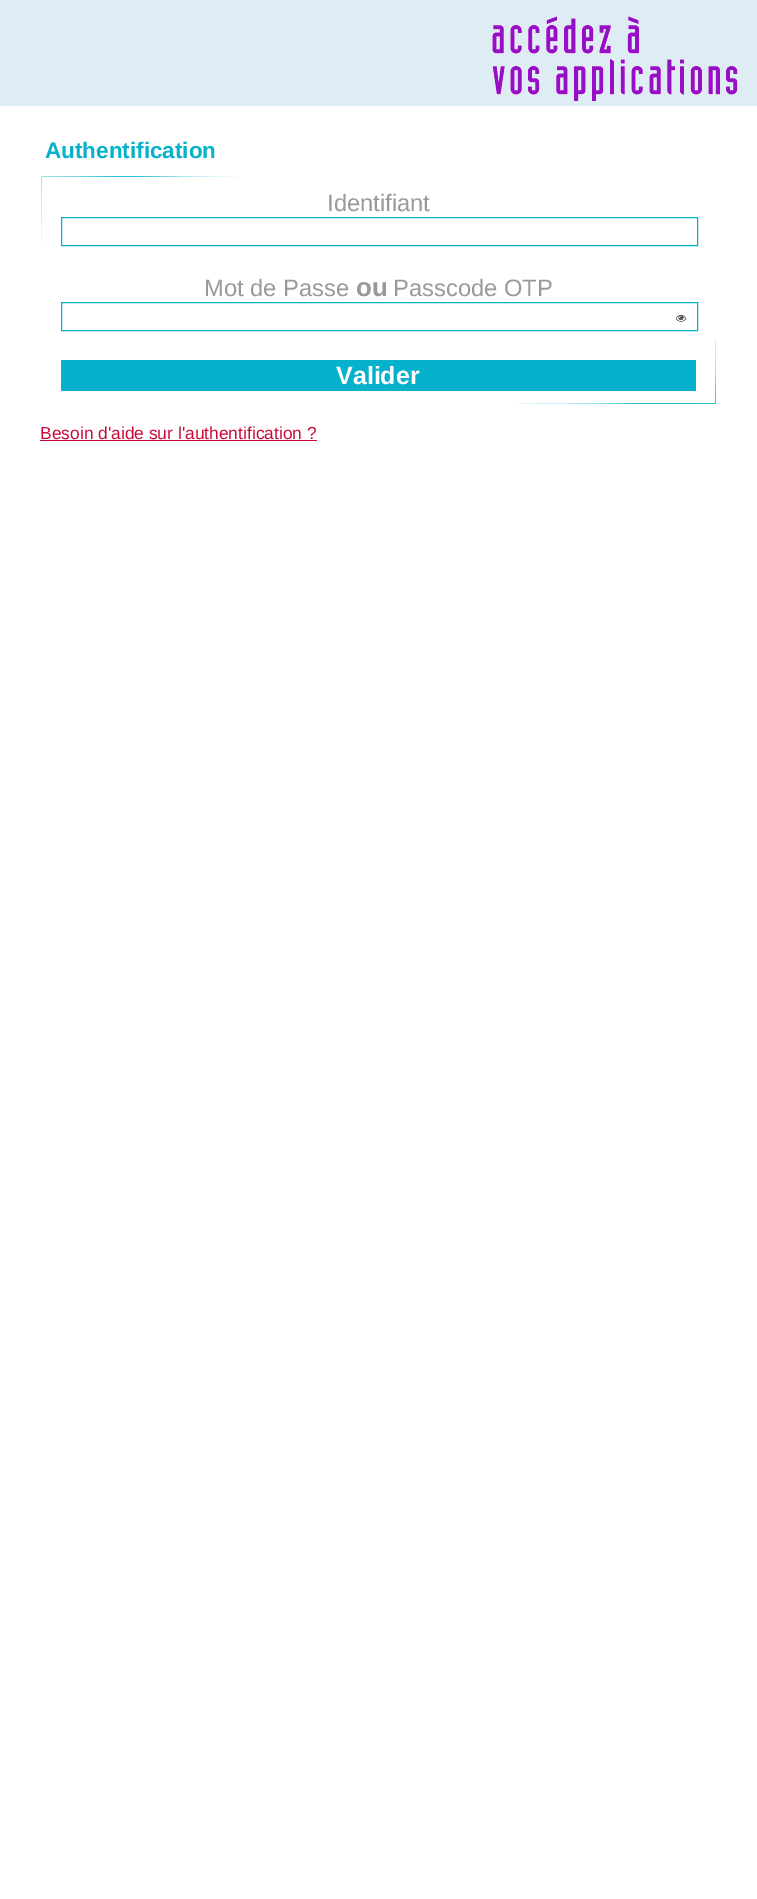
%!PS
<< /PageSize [757 1899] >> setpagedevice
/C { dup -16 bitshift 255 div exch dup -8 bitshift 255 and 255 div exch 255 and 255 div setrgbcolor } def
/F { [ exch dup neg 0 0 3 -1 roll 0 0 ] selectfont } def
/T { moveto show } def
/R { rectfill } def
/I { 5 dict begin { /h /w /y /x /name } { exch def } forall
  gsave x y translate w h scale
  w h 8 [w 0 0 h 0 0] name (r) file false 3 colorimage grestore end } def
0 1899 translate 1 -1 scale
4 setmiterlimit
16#FFFFFF C
0 0 757 1899 R
16#DEEDF4 C
0 0 757 106 R
(1.rgb) 492 16 246 85 I
/LiberationSans-Bold 22.5 F
16#06B1CB C
(Authentification) 45 158 T
(2.rgb) 41 176 198 67 I
(3.rgb) 514 338 202 66 I
/LiberationSans-Regular 23.75 F
16#999999 C
(Identifiant) 327 211 T
16#06B1CB C
61.5 217.5 636 28 rectstroke
16#999999 C
(Mot de Passe) 204 296 T
/LiberationSans-Bold 26 F
(ou) 356 296 T
/LiberationSans-Regular 23.75 F
(Passcode OTP) 393 296 T
16#06B1CB C
61.5 302.5 636 28 rectstroke
(4.rgb) 675 314 12 8 I
61 360 635 31 R
/LiberationSans-Bold 25 F
16#FFFFFF C
(Valider) 336 384 T
/LiberationSans-Regular 17.4 F
16#CB0737 C
(Besoin d'aide sur l'authentification ?) 40 439 T
40 440 277 1 R
showpage
